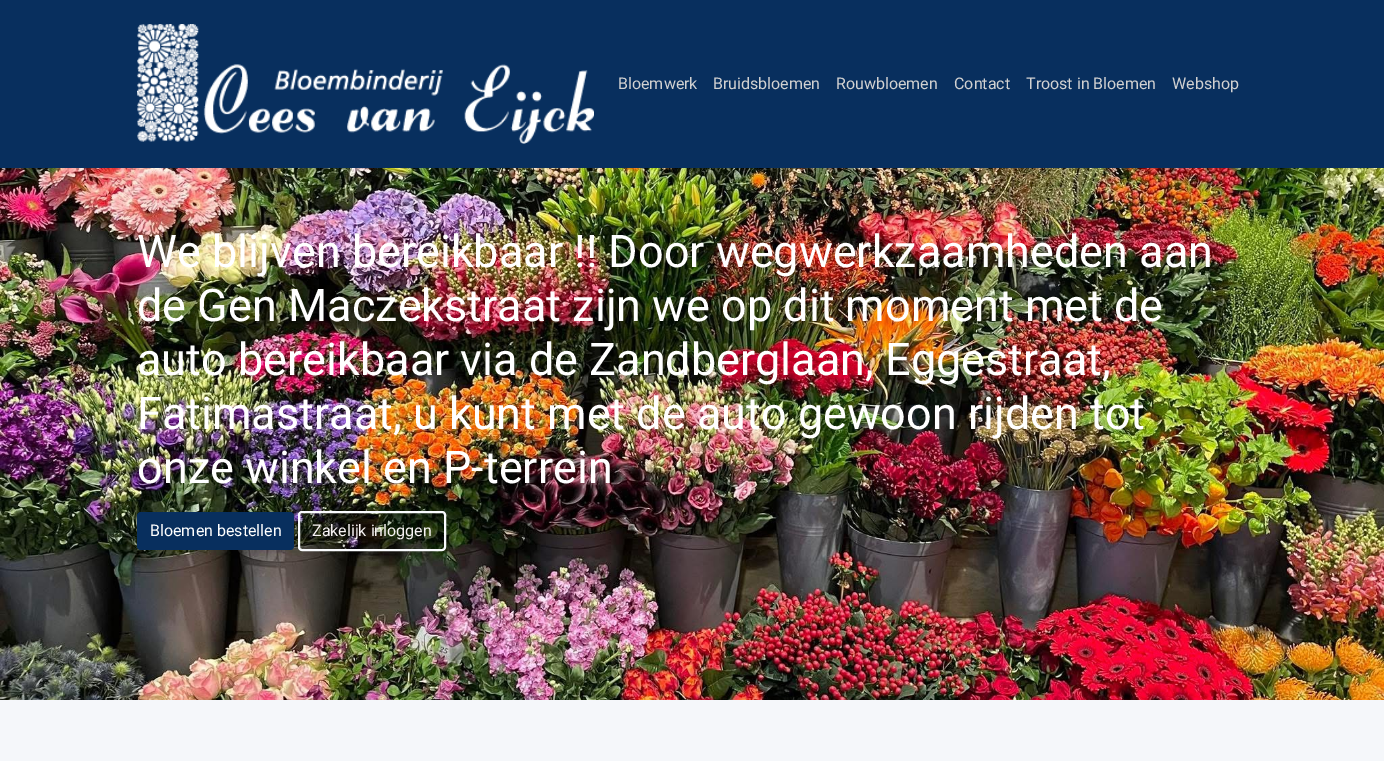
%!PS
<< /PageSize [1384 761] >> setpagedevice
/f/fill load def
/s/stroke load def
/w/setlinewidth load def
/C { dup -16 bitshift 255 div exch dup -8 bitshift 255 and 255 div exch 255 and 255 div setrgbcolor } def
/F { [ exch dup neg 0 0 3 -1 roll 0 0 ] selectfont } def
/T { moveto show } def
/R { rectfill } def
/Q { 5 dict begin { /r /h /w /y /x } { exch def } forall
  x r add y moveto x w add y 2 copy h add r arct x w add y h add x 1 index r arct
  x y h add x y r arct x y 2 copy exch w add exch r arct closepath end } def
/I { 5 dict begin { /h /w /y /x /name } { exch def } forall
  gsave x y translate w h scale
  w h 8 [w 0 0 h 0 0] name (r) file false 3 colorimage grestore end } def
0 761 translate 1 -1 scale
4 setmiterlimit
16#F5F7FA C
0 0 1384 761 R
16#082F5E C
0 0 1384 168 R
(1.rgb) 137 24 457 120 I
/Roboto-Regular 16 F
16#D1D1D1 C
(Bloemwerk) 618 89 T
(Bruidsbloemen) 713 89 T
(Rouwbloemen) 836 89 T
(Contact) 954 89 T
(Troost in Bloemen) 1026 89 T
(Webshop) 1172 89 T
(2.rgb) 0 168 1384 532 I
/Roboto-Regular 45 F
16#FFFFFF C
(We blijven bereikbaar !! Door wegwerkzaamheden aan) 137 267 T
(de Gen Maczekstraat zijn we op dit moment met de) 137 321 T
(auto bereikbaar via de Zandberglaan, Eggestraat,) 137 375 T
(Fatimastraat, u kunt met de auto gewoon rijden tot) 137 429 T
(onze winkel en P-terrein) 137 483 T
16#082F5E C
137 512 157 38 4 Q f
/Roboto-Regular 16 F
16#FFFFFF C
(Bloemen bestellen) 150 536 T
16#FAFCFF C
2 w
299 512 146 38 3 Q s
16#F7F3F3 C
(Zakelijk inloggen) 312 536 T
showpage
